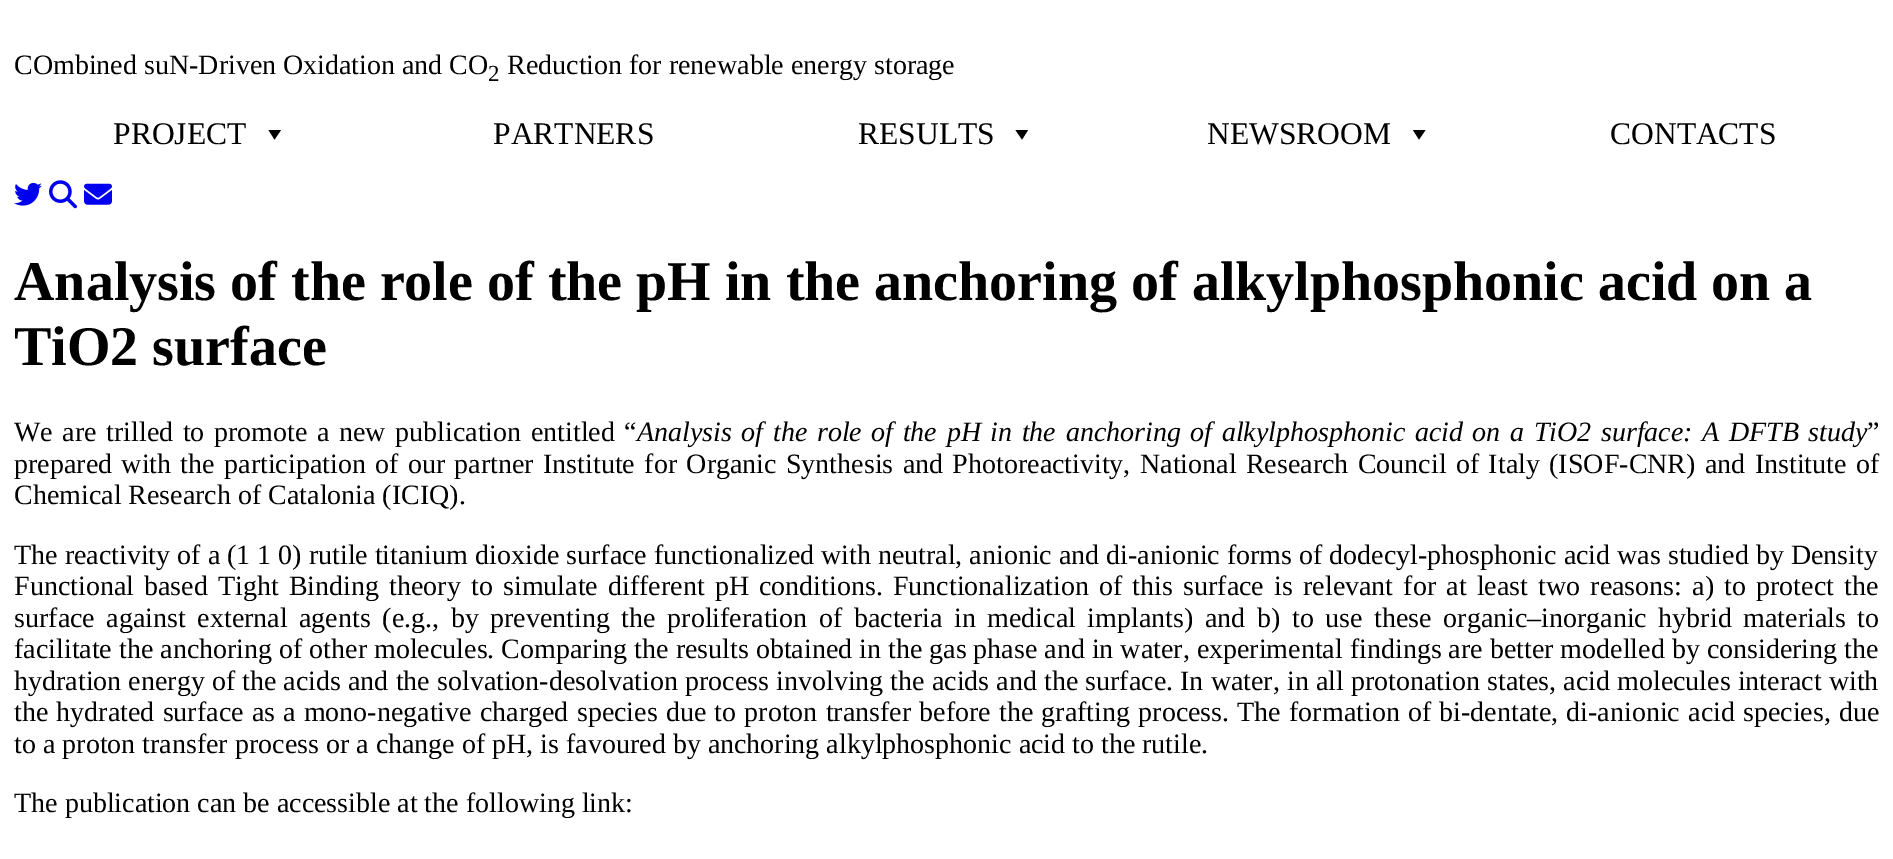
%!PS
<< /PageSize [1893 859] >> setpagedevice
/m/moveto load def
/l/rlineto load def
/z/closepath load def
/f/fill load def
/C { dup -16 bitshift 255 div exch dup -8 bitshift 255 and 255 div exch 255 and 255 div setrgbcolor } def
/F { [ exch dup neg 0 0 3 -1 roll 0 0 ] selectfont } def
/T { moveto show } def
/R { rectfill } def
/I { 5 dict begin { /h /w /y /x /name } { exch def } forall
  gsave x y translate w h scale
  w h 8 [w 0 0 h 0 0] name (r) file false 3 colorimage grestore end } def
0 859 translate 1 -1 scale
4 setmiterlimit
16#FFFFFF C
0 0 1893 859 R
/LiberationSerif-Regular 28 F
16#000000 C
(COmbined suN-Driven Oxidation and CO) 14 74 T
/LiberationSerif-Regular 23 F
(2) 488 81 T
/LiberationSerif-Regular 28 F
(Reduction for renewable energy storage) 507 74 T
/LiberationSerif-Regular 31.5 F
(PROJECT) 113 144 T
281 130 m -6.5 9.5 l -6 -9.5 l z f
(PARTNERS) 493 144 T
(RESULTS) 858 144 T
1028 130 m -6 9.5 l -6.5 -9.5 l z f
(NEWSROOM) 1207 144 T
1425.5 130 m -6.5 9.5 l -6 -9.5 l z f
(CONTACTS) 1610 144 T
(1.rgb) 14 182 28 24 I
(2.rgb) 49 180 28 29 I
(3.rgb) 84 183 28 22 I
/LiberationSerif-Bold 56 F
(Analysis of the role of the pH in the anchoring of alkylphosphonic acid on a) 14 300 T
(TiO2 surface) 14 365 T
/LiberationSerif-Regular 28 F
14 441 m 2.6 0 32 (We are trilled to promote a new publication entitled “) widthshow
/LiberationSerif-Italic 28 F
637 441 m 2.6 0 32 (Analysis of the role of the pH in the anchoring of alkylphosphonic acid on a TiO2 surface: A DFTB study) widthshow
/LiberationSerif-Regular 28 F
(”) 1867 441 T
14 473 m 2.4 0 32 (prepared with the participation of our partner Institute for Organic Synthesis and Photoreactivity, National Research Council of Italy \(ISOF-CNR\) and Institute of) widthshow
(Chemical Research of Catalonia \(ICIQ\).) 14 504 T
(The reactivity of a \(1 1 0\) rutile titanium dioxide surface functionalized with neutral, anionic and di-anionic forms of dodecyl-phosphonic acid was studied by Density) 14 564 T
14 595 m 3.2 0 32 (Functional based Tight Binding theory to simulate different pH conditions. Functionalization of this surface is relevant for at least two reasons: a\) to protect the) widthshow
14 627 m 4.6 0 32 (surface against external agents \(e.g., by preventing the proliferation of bacteria in medical implants\) and b\) to use these organic–inorganic hybrid materials to) widthshow
(facilitate the anchoring of other molecules. Comparing the results obtained in the gas phase and in water, experimental findings are better modelled by considering the) 14 658 T
14 690 m .1 0 32 (hydration energy of the acids and the solvation-desolvation process involving the acids and the surface. In water, in all protonation states, acid molecules interact with) widthshow
14 721 m 1.2 0 32 (the hydrated surface as a mono-negative charged species due to proton transfer before the grafting process. The formation of bi-dentate, di-anionic acid species, due) widthshow
(to a proton transfer process or a change of pH, is favoured by anchoring alkylphosphonic acid to the rutile.) 14 753 T
(The publication can be accessible at the following link:) 14 812 T
showpage
